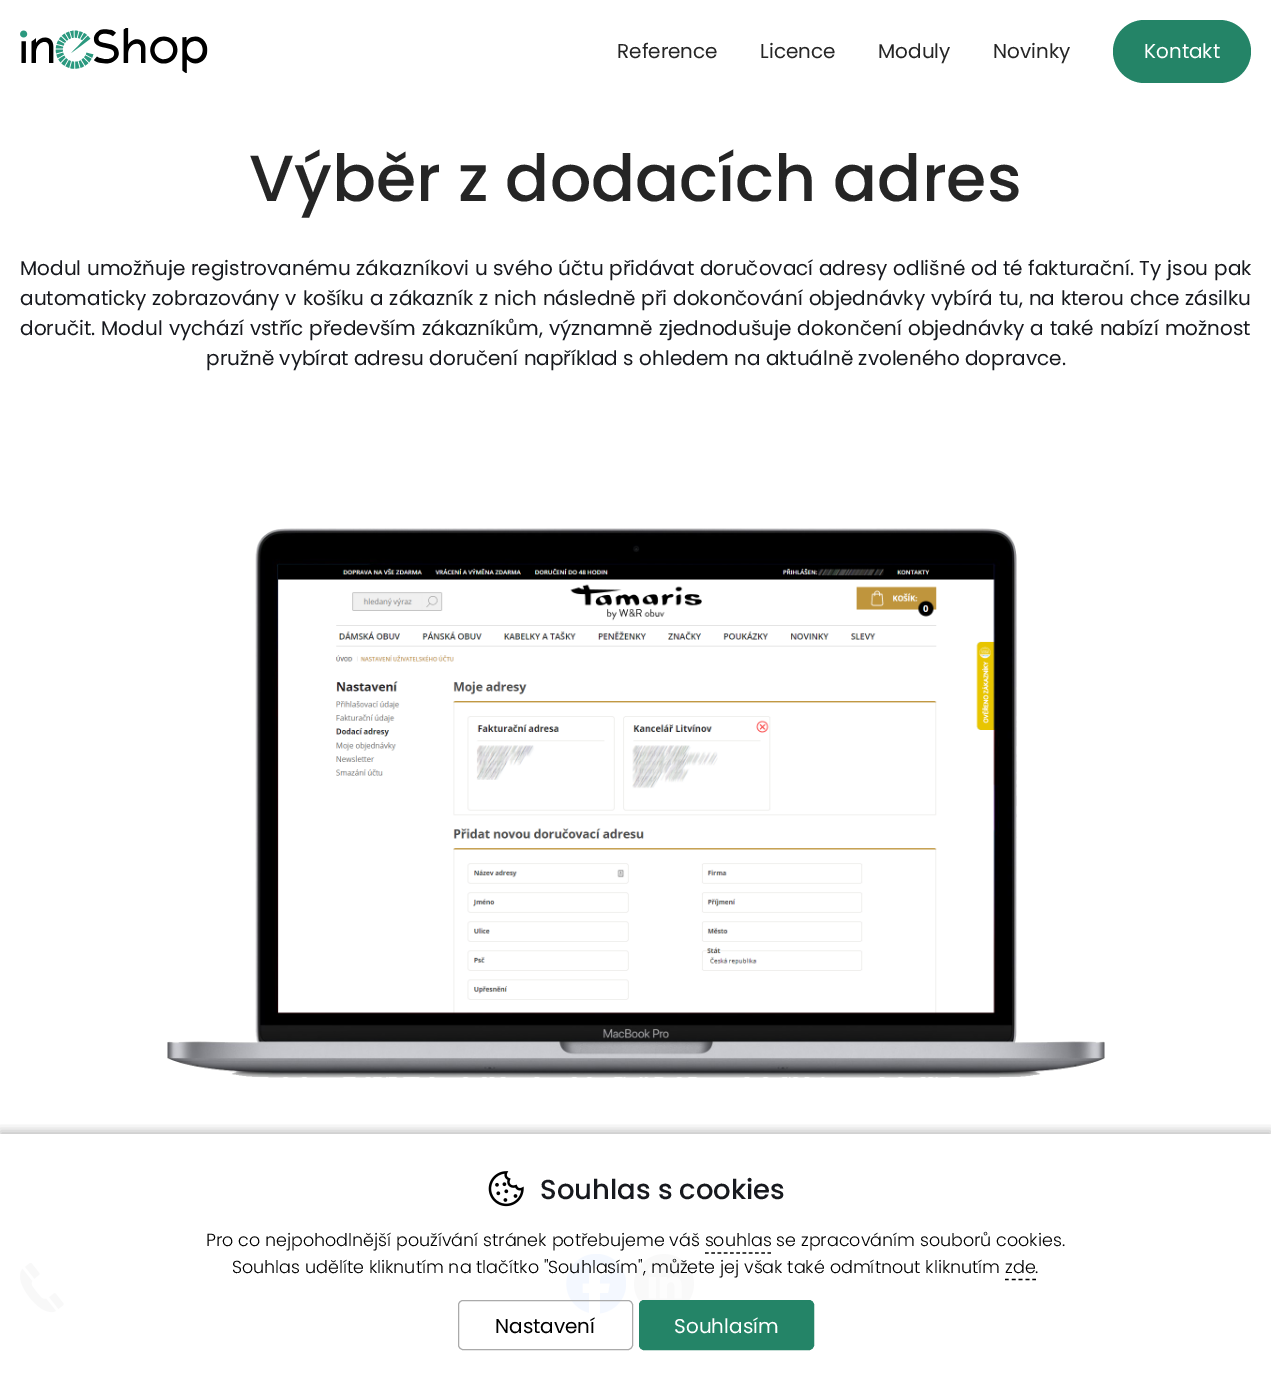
%!PS
<< /PageSize [1271 1375] /PageUsesTransparency true >> setpagedevice
/m/moveto load def
/l/rlineto load def
/f/fill load def
/s/stroke load def
/q/gsave load def
/Q_/grestore load def
/w/setlinewidth load def
/C { dup -16 bitshift 255 div exch dup -8 bitshift 255 and 255 div exch 255 and 255 div setrgbcolor } def
/F { [ exch dup neg 0 0 3 -1 roll 0 0 ] selectfont } def
/T { moveto show } def
/R { rectfill } def
/A { dup .setfillconstantalpha .setstrokeconstantalpha } def
/Q { 5 dict begin { /r /h /w /y /x } { exch def } forall
  x r add y moveto x w add y 2 copy h add r arct x w add y h add x 1 index r arct
  x y h add x y r arct x y 2 copy exch w add exch r arct closepath end } def
/S { 12 dict begin { /a /b /q /h /w /y /x } { exch def } forall gsave /was 0 def
  9 -2 -9 { dup b mul 4 div /e exch def 1 sub .425 mul 2.718 exch exp 1 add a .99 .min exch div /now exch def
    1 1 now sub 1 was sub div sub A /was now def
    w h .min e 2 mul add 0 gt { x e sub y e sub w e 2 mul add h e 2 mul add
      q e add b .6 mul add w h .min 2 div e add .min 0 .max Q fill } if } for grestore end } def
/I { 5 dict begin { /h /w /y /x /name } { exch def } forall
  gsave x y translate w h scale
  w h 8 [w 0 0 h 0 0] name (r) file false 3 colorimage grestore end } def
0 .pushpdf14devicefilter
0 1375 translate 1 -1 scale
4 setmiterlimit
16#FFFFFF C
0 0 1271 1375 R
(1.rgb) 20 28 188 45 I
/Poppins-Regular 20 F
16#252525 C
(Reference) 617 58 T
(Licence) 760 58 T
(Moduly) 878 58 T
(Novinky) 993 58 T
16#248467 C
1113 20 138 63 31.5 Q f
16#FFFFFF C
(Kontakt) 1144 58 T
/Poppins-Medium 65 F
16#252525 C
(Výběr z dodacích adres) 249 201 T
/Poppins-Regular 20 F
16#17191E C
20 275 m .4 0 32 (Modul umožňuje registrovanému zákazníkovi u svého účtu přidávat doručovací adresy odlišné od té fakturační. Ty jsou pak) widthshow
20 305 m .6 0 32 (automaticky zobrazovány v košíku a zákazník z nich následně při dokončování objednávky vybírá tu, na kterou chce zásilku) widthshow
20 335 m .8 0 32 (doručit. Modul vychází vstříc především zákazníkům, významně zjednodušuje dokončení objednávky a také nabízí možnost) widthshow
(pružně vybírat adresu doručení například s ohledem na aktuálně zvoleného dopravce.) 206 365 T
(2.rgb) 167 528 938 550 I
(4.rgb) 20 1263 44 50 I
(5.rgb) 566 1254 60 60 I
(6.rgb) 634 1254 60 48 I
q
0 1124 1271 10 rectclip
16#000000 C
0 1131 1271 242 0 5 .25 S
Q_
(3.rgb) 488 1171 36 36 I
/Poppins-Medium 27.5 F
(Souhlas s cookies) 540 1199 T
/Poppins-Light 17.5 F
16#000000 C
(Pro co nejpohodlnější používání stránek potřebujeme váš souhlas se zpracováním souborů cookies.) 206 1246 T
1.2 w
[3.75 2.5] 0 setdash
705 1253 m 66 0 l s
(Souhlas udělíte kliknutím na tlačítko "Souhlasím", můžete jej však také odmítnout kliknutím zde.) 232 1273 T
[3.75 3.12] 0 setdash
1005 1279.5 m 31 0 l s
16#AAAAAA C
1 w
[] 0 setdash
458.5 1300.5 174 49 4.5 Q s
/Poppins-Regular 20 F
16#000000 C
(Nastavení) 495 1333 T
16#248467 C
639.5 1300.5 174 49 4.5 Q q f Q_
s
16#FFFFFF C
(Souhlasím) 674 1333 T
.poppdf14devicefilter showpage
